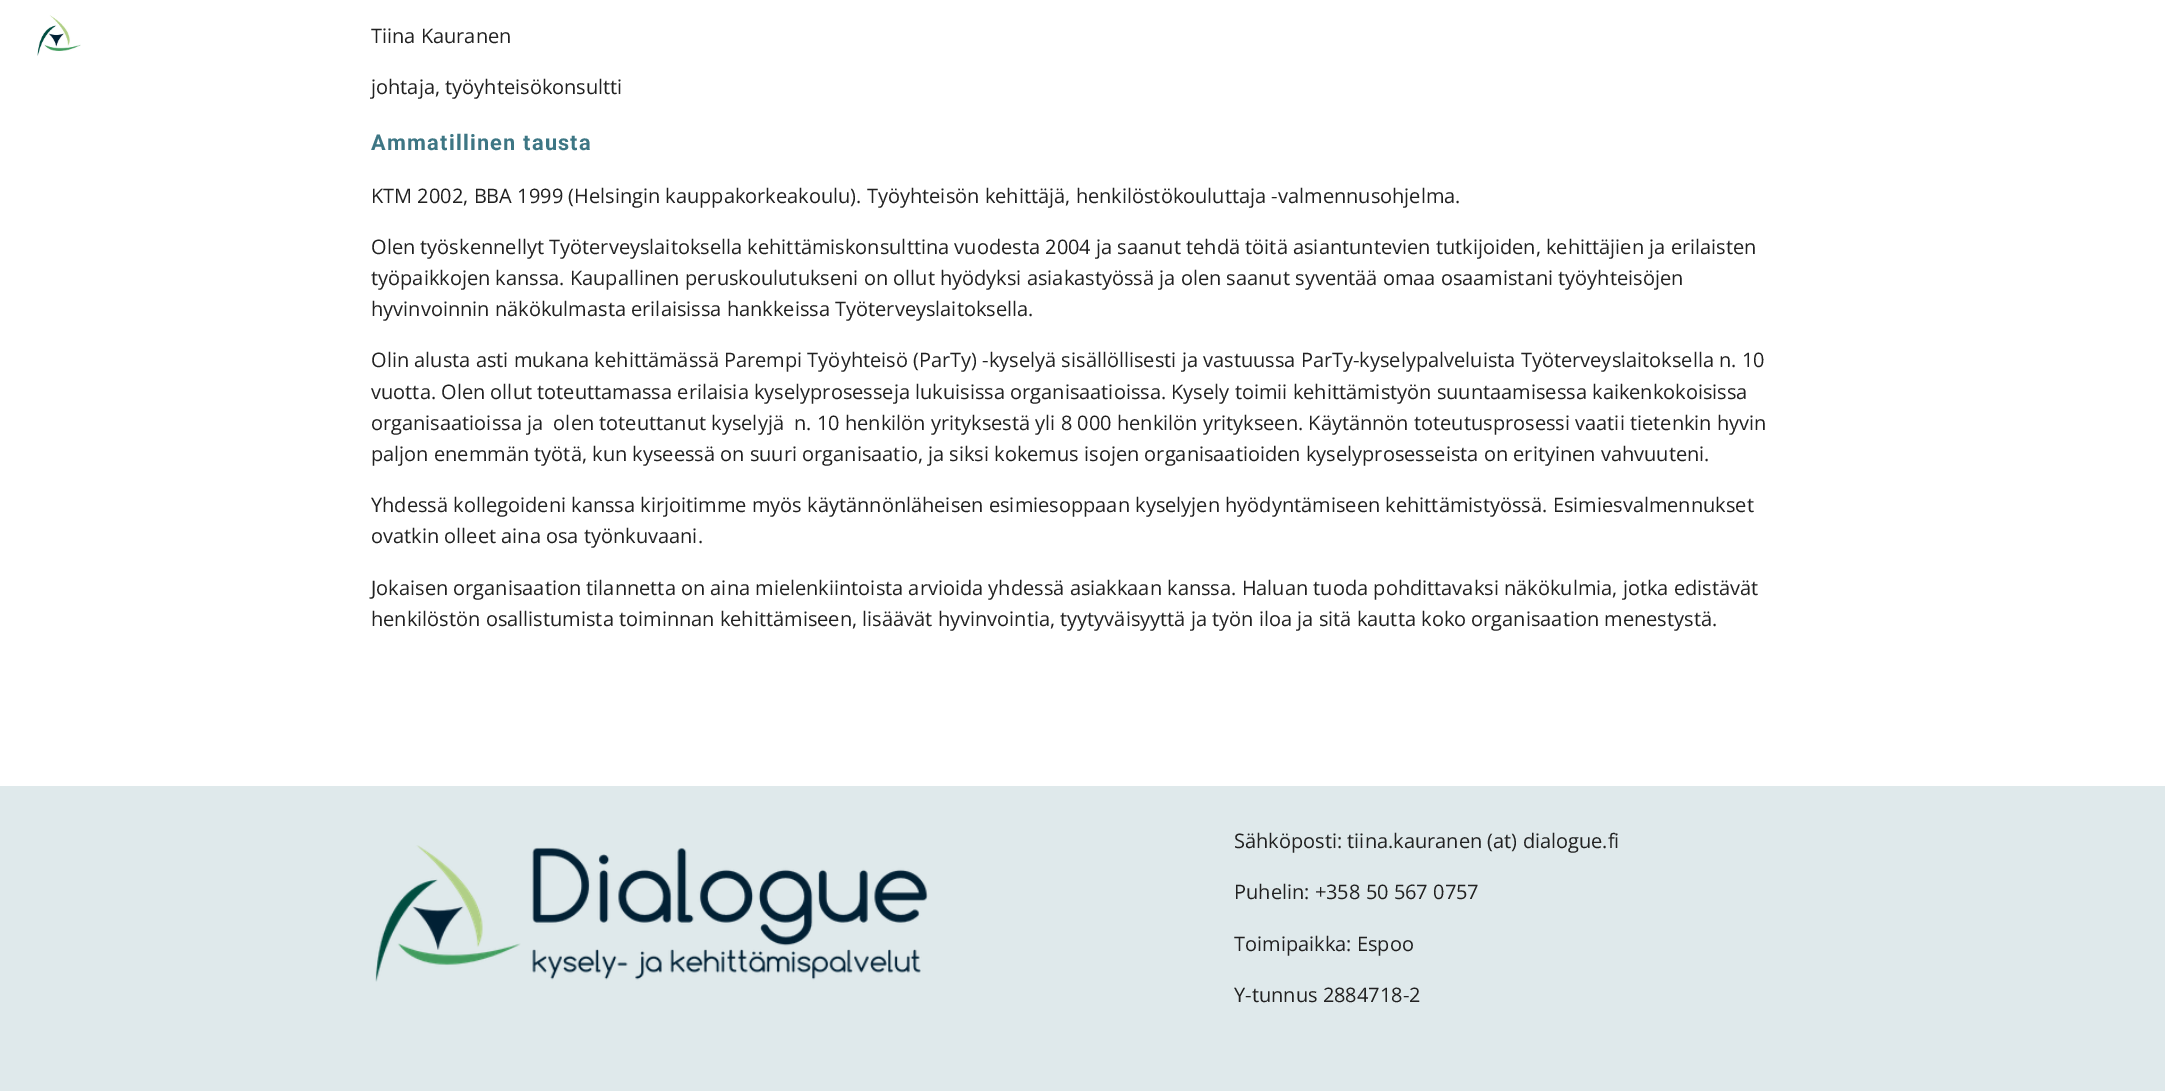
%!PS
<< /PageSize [2165 1091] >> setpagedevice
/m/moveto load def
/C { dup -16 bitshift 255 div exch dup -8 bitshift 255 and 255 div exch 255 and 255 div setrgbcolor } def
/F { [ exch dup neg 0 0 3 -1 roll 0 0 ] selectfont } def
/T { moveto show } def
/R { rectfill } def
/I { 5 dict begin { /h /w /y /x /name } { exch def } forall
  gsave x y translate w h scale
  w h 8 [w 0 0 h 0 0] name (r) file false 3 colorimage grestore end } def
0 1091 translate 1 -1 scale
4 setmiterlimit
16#FFFFFF C
0 0 2165 1091 R
(1.rgb) 37 15 44 41 I
/OpenSans-Regular 20 F
16#212121 C
(Tiina Kauranen) 371 43 T
(johtaja, työyhteisökonsultti) 371 94 T
/Roboto-Bold 21.75 F
16#3D7684 C
371 150 m 1.25 0 (Ammatillinen tausta) ashow
/OpenSans-Regular 20 F
16#212121 C
(KTM 2002, BBA 1999 \(Helsingin kauppakorkeakoulu\). Työyhteisön kehittäjä, henkilöstökouluttaja -valmennusohjelma.) 371 203 T
(Olen työskennellyt Työterveyslaitoksella kehittämiskonsulttina vuodesta 2004 ja saanut tehdä töitä asiantuntevien tutkijoiden, kehittäjien ja erilaisten) 371 254 T
(työpaikkojen kanssa. Kaupallinen peruskoulutukseni on ollut hyödyksi asiakastyössä ja olen saanut syventää omaa osaamistani työyhteisöjen) 371 285 T
(hyvinvoinnin näkökulmasta erilaisissa hankkeissa Työterveyslaitoksella.) 371 316 T
(Olin alusta asti mukana kehittämässä Parempi Työyhteisö \(ParTy\) -kyselyä sisällöllisesti ja vastuussa ParTy-kyselypalveluista Työterveyslaitoksella n. 10) 371 367 T
(vuotta. Olen ollut toteuttamassa erilaisia kyselyprosesseja lukuisissa organisaatioissa. Kysely toimii kehittämistyön suuntaamisessa kaikenkokoisissa) 371 399 T
(organisaatioissa ja  olen toteuttanut kyselyjä  n. 10 henkilön yrityksestä yli 8 000 henkilön yritykseen. Käytännön toteutusprosessi vaatii tietenkin hyvin) 371 430 T
(paljon enemmän työtä, kun kyseessä on suuri organisaatio, ja siksi kokemus isojen organisaatioiden kyselyprosesseista on erityinen vahvuuteni.) 371 461 T
(Yhdessä kollegoideni kanssa kirjoitimme myös käytännönläheisen esimiesoppaan kyselyjen hyödyntämiseen kehittämistyössä. Esimiesvalmennukset) 371 512 T
(ovatkin olleet aina osa työnkuvaani.) 371 543 T
(Jokaisen organisaation tilannetta on aina mielenkiintoista arvioida yhdessä asiakkaan kanssa. Haluan tuoda pohdittavaksi näkökulmia, jotka edistävät) 371 595 T
(henkilöstön osallistumista toiminnan kehittämiseen, lisäävät hyvinvointia, tyytyväisyyttä ja työn iloa ja sitä kautta koko organisaation menestystä.) 371 626 T
16#DFE9EB C
0 786 2165 305 R
(2.rgb) 375 845 553 137 I
16#212121 C
(Sähköposti: tiina.kauranen \(at\) dialogue.fi) 1234 848 T
(Puhelin: +358 50 567 0757) 1234 899 T
(Toimipaikka: Espoo) 1234 951 T
(Y-tunnus 2884718-2) 1234 1002 T
showpage
